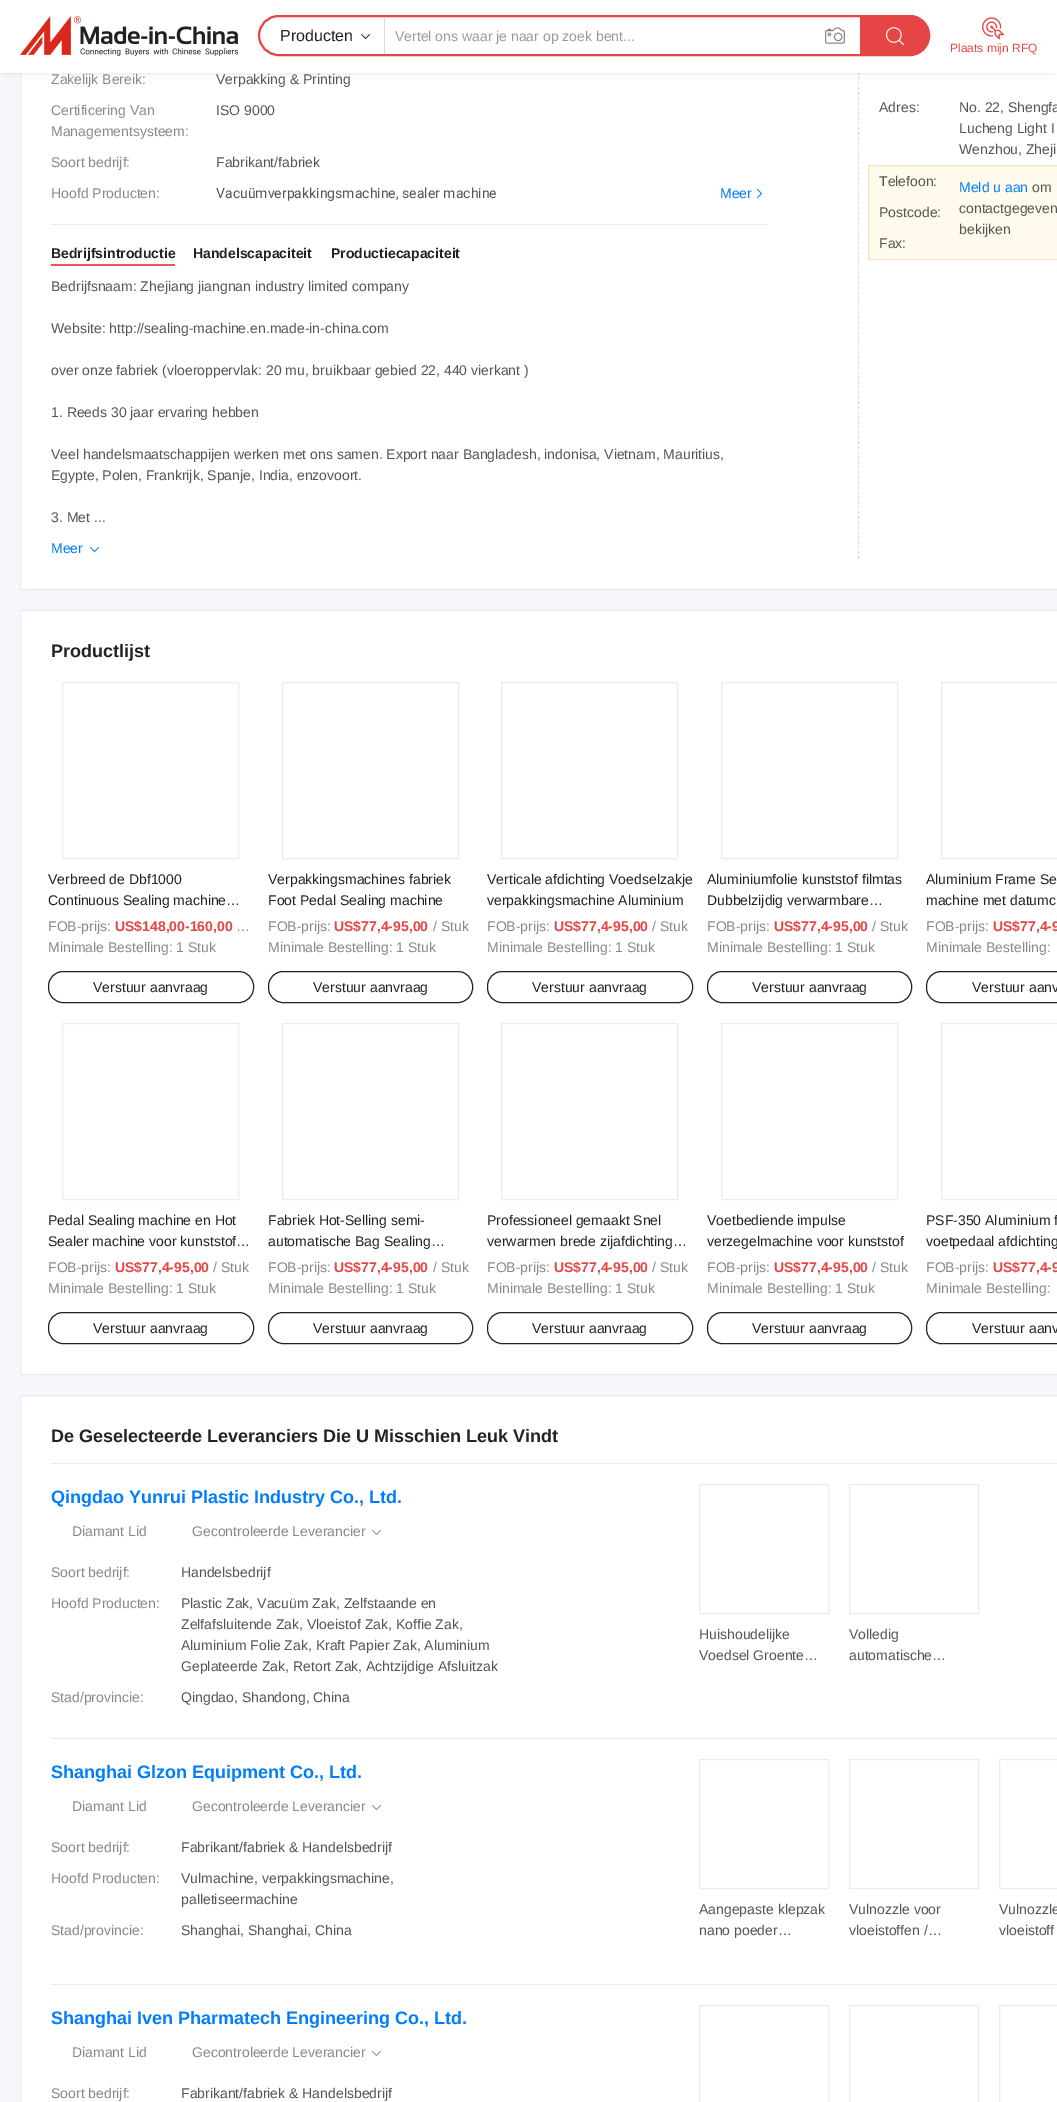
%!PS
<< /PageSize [1057 2102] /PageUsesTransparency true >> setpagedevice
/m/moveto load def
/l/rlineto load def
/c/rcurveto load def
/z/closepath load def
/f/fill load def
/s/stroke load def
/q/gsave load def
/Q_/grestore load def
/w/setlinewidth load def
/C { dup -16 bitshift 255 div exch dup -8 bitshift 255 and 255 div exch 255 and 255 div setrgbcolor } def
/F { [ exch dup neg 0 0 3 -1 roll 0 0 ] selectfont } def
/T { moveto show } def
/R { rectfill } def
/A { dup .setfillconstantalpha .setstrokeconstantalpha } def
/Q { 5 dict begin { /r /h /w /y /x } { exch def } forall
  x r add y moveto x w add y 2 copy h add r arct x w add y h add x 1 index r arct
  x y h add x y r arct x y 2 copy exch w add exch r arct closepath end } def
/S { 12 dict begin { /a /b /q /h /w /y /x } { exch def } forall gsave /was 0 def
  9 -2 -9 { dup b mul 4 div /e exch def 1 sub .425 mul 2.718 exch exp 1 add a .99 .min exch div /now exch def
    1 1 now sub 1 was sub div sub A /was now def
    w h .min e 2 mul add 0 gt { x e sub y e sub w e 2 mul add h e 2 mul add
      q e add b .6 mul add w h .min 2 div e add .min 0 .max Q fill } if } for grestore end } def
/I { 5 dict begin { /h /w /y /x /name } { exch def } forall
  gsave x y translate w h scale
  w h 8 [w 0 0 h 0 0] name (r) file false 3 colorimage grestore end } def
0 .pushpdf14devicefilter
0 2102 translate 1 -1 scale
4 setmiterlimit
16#F5F7FA C
0 0 1057 2102 R
16#FFFFFF C
21 73 1036 516 R
16#E6ECF2 C
20.5 -.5 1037 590 rectstroke
16#DAE0E6 C
[3 1.99] 0 setdash
858.5 17 m 0 542 l s
16#000000 C
3 6 1051 67 0 2.5 .12 S
16#FFFFFF C
0 0 1057 73 R
(1.rgb) 20 16 218 40 I
16#E64545 C
2 w
[] 0 setdash
259 16 670 39 19.5 Q s
16#DADADA C
384 17 1 37 R
/LiberationSans-Regular 16 F
16#222222 C
(Producten) 280 41 T
(2.rgb) 361 34 9 5 I
/LiberationSans-Regular 14 F
16#999999 C
(Vertel ons waar je naar op zoek bent...) 395 41 T
(3.rgb) 825 27 20 17 I
16#E64545 C
860 15 m 49.5 0 l 11.5 0 20.5 9 20.5 20.5 c 0 11.5 -9 20.5 -20.5 20.5 c -49.5 0 l z f
(4.rgb) 886 27 18 19 I
(5.rgb) 982 17 22 23 I
/LiberationSans-Regular 12 F
(Plaats mijn RFQ) 950 52 T
/LiberationSans-Regular 14 F
16#888888 C
(Zakelijk Bereik:) 51 84 T
16#555555 C
(Verpakking & Printing) 216 84 T
16#888888 C
(Certificering Van) 51 115 T
(Managementsysteem:) 51 136 T
16#555555 C
(ISO 9000) 216 115 T
16#888888 C
(Soort bedrijf:) 51 167 T
16#555555 C
(Fabrikant/fabriek) 216 167 T
16#888888 C
(Hoofd Producten:) 51 198 T
/Roboto-Regular 14 F
16#555555 C
(Vacuümverpakkingsmachine, sealer machine) 216 198 T
/LiberationSans-Regular 14 F
16#007DFA C
(Meer) 720 198 T
(6.rgb) 757 189 5 9 I
16#E6ECF2 C
51 224 717 1 R
16#EB5757 C
51 264 124 2 R
/LiberationSans-Bold 14 F
16#222222 C
(Bedrijfsintroductie) 51 258 T
(Handelscapaciteit) 193 258 T
(Productiecapaciteit) 331 258 T
/LiberationSans-Regular 14 F
16#555555 C
(Bedrijfsnaam: Zhejiang jiangnan industry limited company) 51 291 T
(Website: http://sealing-machine.en.made-in-china.com) 51 333 T
(over onze fabriek \(vloeroppervlak: 20 mu, bruikbaar gebied 22, 440 vierkant \)) 51 375 T
(1. Reeds 30 jaar ervaring hebben) 51 417 T
(Veel handelsmaatschappijen werken met ons samen. Export naar Bangladesh, indonisa, Vietnam, Mauritius,) 51 459 T
(Egypte, Polen, Frankrijk, Spanje, India, enzovoort.) 51 480 T
(3. Met ...) 51 522 T
16#007DFA C
(Meer) 51 553 T
(7.rgb) 90 547 9 5 I
16#555555 C
(Adres:) 879 112 T
(No. 22, Shengfa) 959 112 T
(Lucheng Light I) 959 133 T
(Wenzhou, Zheji) 959 154 T
16#FFFAEB C
868.5 165.5 m 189 0 l 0 94 l -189 0 l z q f Q_
16#F2E6C2 C
1 w
s
16#555555 C
(Telefoon:) 879 186 T
(Postcode:) 879 217 T
(Fax:) 879 248 T
16#007DFA C
(Meld u aan) 959 192 T
16#555555 C
(om) 1032 192 T
(contactgegeven) 959 213 T
(bekijken) 959 234 T
16#FFFFFF C
20.5 610.5 m 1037 0 l 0 764 l -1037 0 l z q f Q_
16#E6ECF2 C
s
/LiberationSans-Bold 18 F
16#222222 C
(Productlijst) 51 657 T
16#E6ECF2 C
62.5 682.5 176 176 rectstroke
/LiberationSans-Regular 14 F
16#222222 C
(Verbreed de Dbf1000) 48 884 T
(Continuous Sealing machine…) 48 905 T
16#888888 C
(FOB-prijs:) 48 931 T
/LiberationSans-Bold 14 F
16#E64545 C
(US$148,00-160,00) 115 931 T
/LiberationSans-Regular 14 F
16#888888 C
(…) 236 931 T
(Minimale Bestelling: 1 Stuk) 48 952 T
16#222222 C
48.5 971.5 205 31 14.5 Q s
(Verstuur aanvraag) 93 992 T
16#E6ECF2 C
282.5 682.5 176 176 rectstroke
16#222222 C
(Verpakkingsmachines fabriek) 268 884 T
(Foot Pedal Sealing machine) 268 905 T
16#888888 C
(FOB-prijs:) 268 931 T
/LiberationSans-Bold 14 F
16#E64545 C
(US$77,4-95,00) 334 931 T
/LiberationSans-Regular 14 F
16#888888 C
(/ Stuk) 433 931 T
(Minimale Bestelling: 1 Stuk) 268 952 T
16#222222 C
268.5 971.5 204 31 14.5 Q s
(Verstuur aanvraag) 313 992 T
16#E6ECF2 C
501.5 682.5 176 176 rectstroke
16#222222 C
(Verticale afdichting Voedselzakje) 487 884 T
(verpakkingsmachine Aluminium) 487 905 T
16#888888 C
(FOB-prijs:) 487 931 T
/LiberationSans-Bold 14 F
16#E64545 C
(US$77,4-95,00) 554 931 T
/LiberationSans-Regular 14 F
16#888888 C
(/ Stuk) 652 931 T
(Minimale Bestelling: 1 Stuk) 487 952 T
16#222222 C
487.5 971.5 205 31 14.5 Q s
(Verstuur aanvraag) 532 992 T
16#E6ECF2 C
721.5 682.5 176 176 rectstroke
16#222222 C
(Aluminiumfolie kunststof filmtas) 707 884 T
(Dubbelzijdig verwarmbare…) 707 905 T
16#888888 C
(FOB-prijs:) 707 931 T
/LiberationSans-Bold 14 F
16#E64545 C
(US$77,4-95,00) 774 931 T
/LiberationSans-Regular 14 F
16#888888 C
(/ Stuk) 872 931 T
(Minimale Bestelling: 1 Stuk) 707 952 T
16#222222 C
707.5 971.5 204 31 14.5 Q s
(Verstuur aanvraag) 752 992 T
16#E6ECF2 C
941.5 682.5 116 176 rectstroke
16#222222 C
(Aluminium Frame Se) 926 884 T
(machine met datumc) 926 905 T
16#888888 C
(FOB-prijs:) 926 931 T
/LiberationSans-Bold 14 F
16#E64545 C
(US$77,4-9) 993 931 T
/LiberationSans-Regular 14 F
16#888888 C
(Minimale Bestelling:) 926 952 T
16#222222 C
926.5 971.5 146 31 14.5 Q s
(Verstuur aanv) 972 992 T
16#E6ECF2 C
62.5 1023.5 176 176 rectstroke
16#222222 C
(Pedal Sealing machine en Hot) 48 1225 T
(Sealer machine voor kunststof…) 48 1246 T
16#888888 C
(FOB-prijs:) 48 1272 T
/LiberationSans-Bold 14 F
16#E64545 C
(US$77,4-95,00) 115 1272 T
/LiberationSans-Regular 14 F
16#888888 C
(/ Stuk) 213 1272 T
(Minimale Bestelling: 1 Stuk) 48 1293 T
16#222222 C
48.5 1312.5 205 31 14.5 Q s
(Verstuur aanvraag) 93 1333 T
16#E6ECF2 C
282.5 1023.5 176 176 rectstroke
16#222222 C
(Fabriek Hot-Selling semi-) 268 1225 T
(automatische Bag Sealing…) 268 1246 T
16#888888 C
(FOB-prijs:) 268 1272 T
/LiberationSans-Bold 14 F
16#E64545 C
(US$77,4-95,00) 334 1272 T
/LiberationSans-Regular 14 F
16#888888 C
(/ Stuk) 433 1272 T
(Minimale Bestelling: 1 Stuk) 268 1293 T
16#222222 C
268.5 1312.5 204 31 14.5 Q s
(Verstuur aanvraag) 313 1333 T
16#E6ECF2 C
501.5 1023.5 176 176 rectstroke
16#222222 C
(Professioneel gemaakt Snel) 487 1225 T
(verwarmen brede zijafdichting…) 487 1246 T
16#888888 C
(FOB-prijs:) 487 1272 T
/LiberationSans-Bold 14 F
16#E64545 C
(US$77,4-95,00) 554 1272 T
/LiberationSans-Regular 14 F
16#888888 C
(/ Stuk) 652 1272 T
(Minimale Bestelling: 1 Stuk) 487 1293 T
16#222222 C
487.5 1312.5 205 31 14.5 Q s
(Verstuur aanvraag) 532 1333 T
16#E6ECF2 C
721.5 1023.5 176 176 rectstroke
16#222222 C
(Voetbediende impulse) 707 1225 T
(verzegelmachine voor kunststof) 707 1246 T
16#888888 C
(FOB-prijs:) 707 1272 T
/LiberationSans-Bold 14 F
16#E64545 C
(US$77,4-95,00) 774 1272 T
/LiberationSans-Regular 14 F
16#888888 C
(/ Stuk) 872 1272 T
(Minimale Bestelling: 1 Stuk) 707 1293 T
16#222222 C
707.5 1312.5 204 31 14.5 Q s
(Verstuur aanvraag) 752 1333 T
16#E6ECF2 C
941.5 1023.5 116 176 rectstroke
16#222222 C
(PSF-350 Aluminium f) 926 1225 T
(voetpedaal afdichting) 926 1246 T
16#888888 C
(FOB-prijs:) 926 1272 T
/LiberationSans-Bold 14 F
16#E64545 C
(US$77,4-9) 993 1272 T
/LiberationSans-Regular 14 F
16#888888 C
(Minimale Bestelling:) 926 1293 T
16#222222 C
926.5 1312.5 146 31 14.5 Q s
(Verstuur aanv) 972 1333 T
16#FFFFFF C
20.5 1395.5 m 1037 0 l 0 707 l -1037 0 l z q f Q_
16#E6ECF2 C
s
/LiberationSans-Bold 18 F
16#222222 C
(De Geselecteerde Leveranciers Die U Misschien Leuk Vindt) 51 1442 T
16#E6ECF2 C
51 1463 1006 1 R
16#007DFA C
(Qingdao Yunrui Plastic Industry Co., Ltd.) 51 1503 T
/LiberationSans-Regular 14 F
16#888888 C
(Diamant Lid) 72 1536 T
(Gecontroleerde Leverancier) 192 1536 T
(8.rgb) 372 1530 9 5 I
(Soort bedrijf:) 51 1577 T
16#555555 C
(Handelsbedrijf) 181 1577 T
16#888888 C
(Hoofd Producten:) 51 1608 T
16#555555 C
(Plastic Zak, Vacuüm Zak, Zelfstaande en) 181 1608 T
(Zelfafsluitende Zak, Vloeistof Zak, Koffie Zak,) 181 1629 T
(Aluminium Folie Zak, Kraft Papier Zak, Aluminium) 181 1650 T
(Geplateerde Zak, Retort Zak, Achtzijdige Afsluitzak) 181 1671 T
16#888888 C
(Stad/provincie:) 51 1702 T
16#555555 C
(Qingdao, Shandong, China) 181 1702 T
16#E6ECF2 C
699.5 1484.5 129 129 rectstroke
16#555555 C
(Huishoudelijke) 699 1639 T
(Voedsel Groente…) 699 1660 T
16#E6ECF2 C
849.5 1484.5 129 129 rectstroke
16#555555 C
(Volledig) 849 1639 T
(automatische…) 849 1660 T
16#E6ECF2 C
51 1738 1006 1 R
/LiberationSans-Bold 18 F
16#007DFA C
(Shanghai Glzon Equipment Co., Ltd.) 51 1778 T
/LiberationSans-Regular 14 F
16#888888 C
(Diamant Lid) 72 1811 T
(Gecontroleerde Leverancier) 192 1811 T
(8.rgb) 372 1805 9 5 I
(Soort bedrijf:) 51 1852 T
16#555555 C
(Fabrikant/fabriek & Handelsbedrijf) 181 1852 T
16#888888 C
(Hoofd Producten:) 51 1883 T
16#555555 C
(Vulmachine, verpakkingsmachine,) 181 1883 T
(palletiseermachine) 181 1904 T
16#888888 C
(Stad/provincie:) 51 1935 T
16#555555 C
(Shanghai, Shanghai, China) 181 1935 T
16#E6ECF2 C
699.5 1759.5 129 129 rectstroke
16#555555 C
(Aangepaste klepzak) 699 1914 T
(nano poeder…) 699 1935 T
16#E6ECF2 C
849.5 1759.5 129 129 rectstroke
16#555555 C
(Vulnozzle voor) 849 1914 T
(vloeistoffen /…) 849 1935 T
16#E6ECF2 C
999.5 1759.5 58 129 rectstroke
16#555555 C
(Vulnozzle) 999 1914 T
(vloeistoff) 999 1935 T
16#E6ECF2 C
51 1984 1006 1 R
/LiberationSans-Bold 18 F
16#007DFA C
(Shanghai Iven Pharmatech Engineering Co., Ltd.) 51 2024 T
/LiberationSans-Regular 14 F
16#888888 C
(Diamant Lid) 72 2057 T
(Gecontroleerde Leverancier) 192 2057 T
(8.rgb) 372 2051 9 5 I
(Soort bedrijf:) 51 2098 T
16#555555 C
(Fabrikant/fabriek & Handelsbedrijf) 181 2098 T
16#E6ECF2 C
699.5 2005.5 129 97 rectstroke
849.5 2005.5 129 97 rectstroke
999.5 2005.5 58 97 rectstroke
.poppdf14devicefilter showpage
